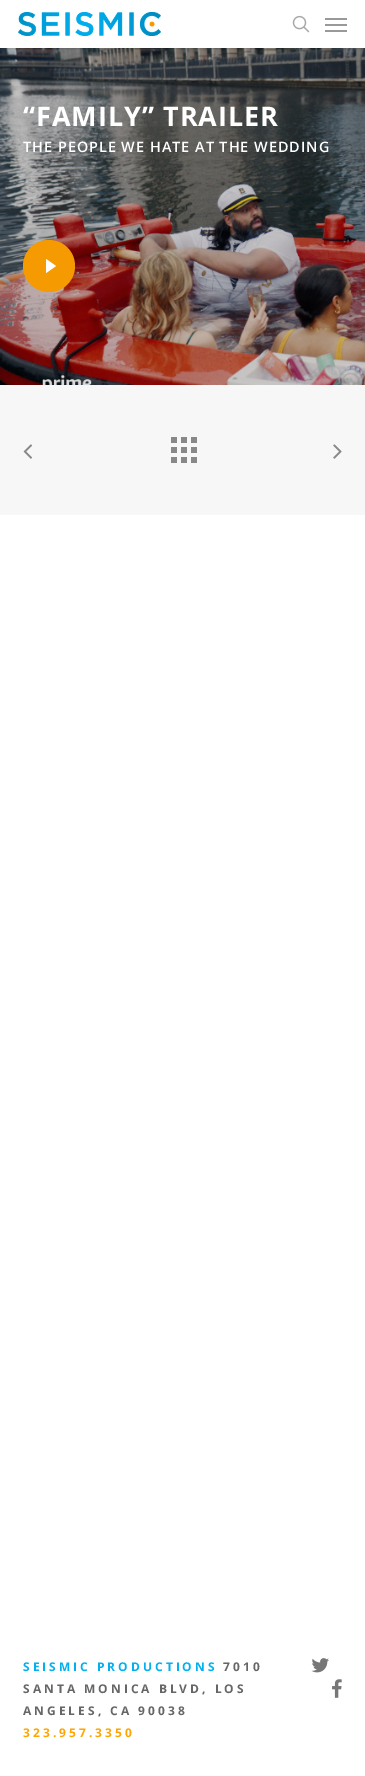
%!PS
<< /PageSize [365 1776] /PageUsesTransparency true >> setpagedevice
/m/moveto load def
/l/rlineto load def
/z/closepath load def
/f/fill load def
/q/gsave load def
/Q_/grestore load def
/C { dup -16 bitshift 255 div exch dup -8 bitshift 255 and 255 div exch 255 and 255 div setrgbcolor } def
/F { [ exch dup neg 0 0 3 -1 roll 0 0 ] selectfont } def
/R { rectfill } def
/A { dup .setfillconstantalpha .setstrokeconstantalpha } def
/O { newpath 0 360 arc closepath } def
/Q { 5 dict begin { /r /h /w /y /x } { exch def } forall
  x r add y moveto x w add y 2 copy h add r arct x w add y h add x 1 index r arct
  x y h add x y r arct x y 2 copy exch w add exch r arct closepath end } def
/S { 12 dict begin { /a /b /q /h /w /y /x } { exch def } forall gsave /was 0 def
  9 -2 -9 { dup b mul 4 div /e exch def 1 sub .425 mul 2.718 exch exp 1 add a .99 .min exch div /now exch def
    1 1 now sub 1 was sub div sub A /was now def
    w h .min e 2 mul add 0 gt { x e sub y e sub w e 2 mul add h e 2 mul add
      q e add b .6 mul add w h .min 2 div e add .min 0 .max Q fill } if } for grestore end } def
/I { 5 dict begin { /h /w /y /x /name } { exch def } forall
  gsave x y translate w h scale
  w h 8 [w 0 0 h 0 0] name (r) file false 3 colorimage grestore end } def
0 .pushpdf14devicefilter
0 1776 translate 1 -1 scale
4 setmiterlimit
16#FFFFFF C
0 0 365 1776 R
(3.rgb) 0 48 365 337 I
q
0 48 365 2 rectclip
16#000000 C
0 0 365 48 0 1.5 .22 S
Q_
(1.rgb) 18 12 143 24 I
(2.rgb) 292 15 18 18 I
16#999999 C
325 18 22 2 R
325 30 22 2 R
325 24 22 2 R
/OpenSans-Bold 27 F
16#FFFFFF C
23 126 m 1 0 (“FAMILY” TRAILER) ashow
/OpenSans-SemiBold 14.4 F
23 152 m 1 0 (THE PEOPLE WE HATE AT THE WEDDING) ashow
16#F59A01 C
49 266 26 O f
16#FFFFFF C
46 259 m 0 14 l 10 -7 l z f
16#F7F7F7 C
0 385 365 130 R
16#888888 C
191 457 6 6 R
181 457 6 6 R
171 437 6 6 R
181 437 6 6 R
191 437 6 6 R
191 447 6 6 R
171 457 6 6 R
171 447 6 6 R
181 447 6 6 R
(4.rgb) 23 444 9 15 I
(5.rgb) 333 444 9 15 I
/OpenSans-Bold 12 F
16#02B0EF C
23 1671 m 3 0 (SEISMIC PRODUCTIONS) ashow
16#666666 C
223 1671 m 3 0 (7010) ashow
23 1693 m 3 0 (SANTA MONICA BLVD, LOS) ashow
23 1715 m 3 0 (ANGELES, CA 90038) ashow
16#FFA500 C
23 1737 m 3 0 (323.957.3350) ashow
(6.rgb) 311 1658 18 15 I
(7.rgb) 332 1679 10 19 I
.poppdf14devicefilter showpage
